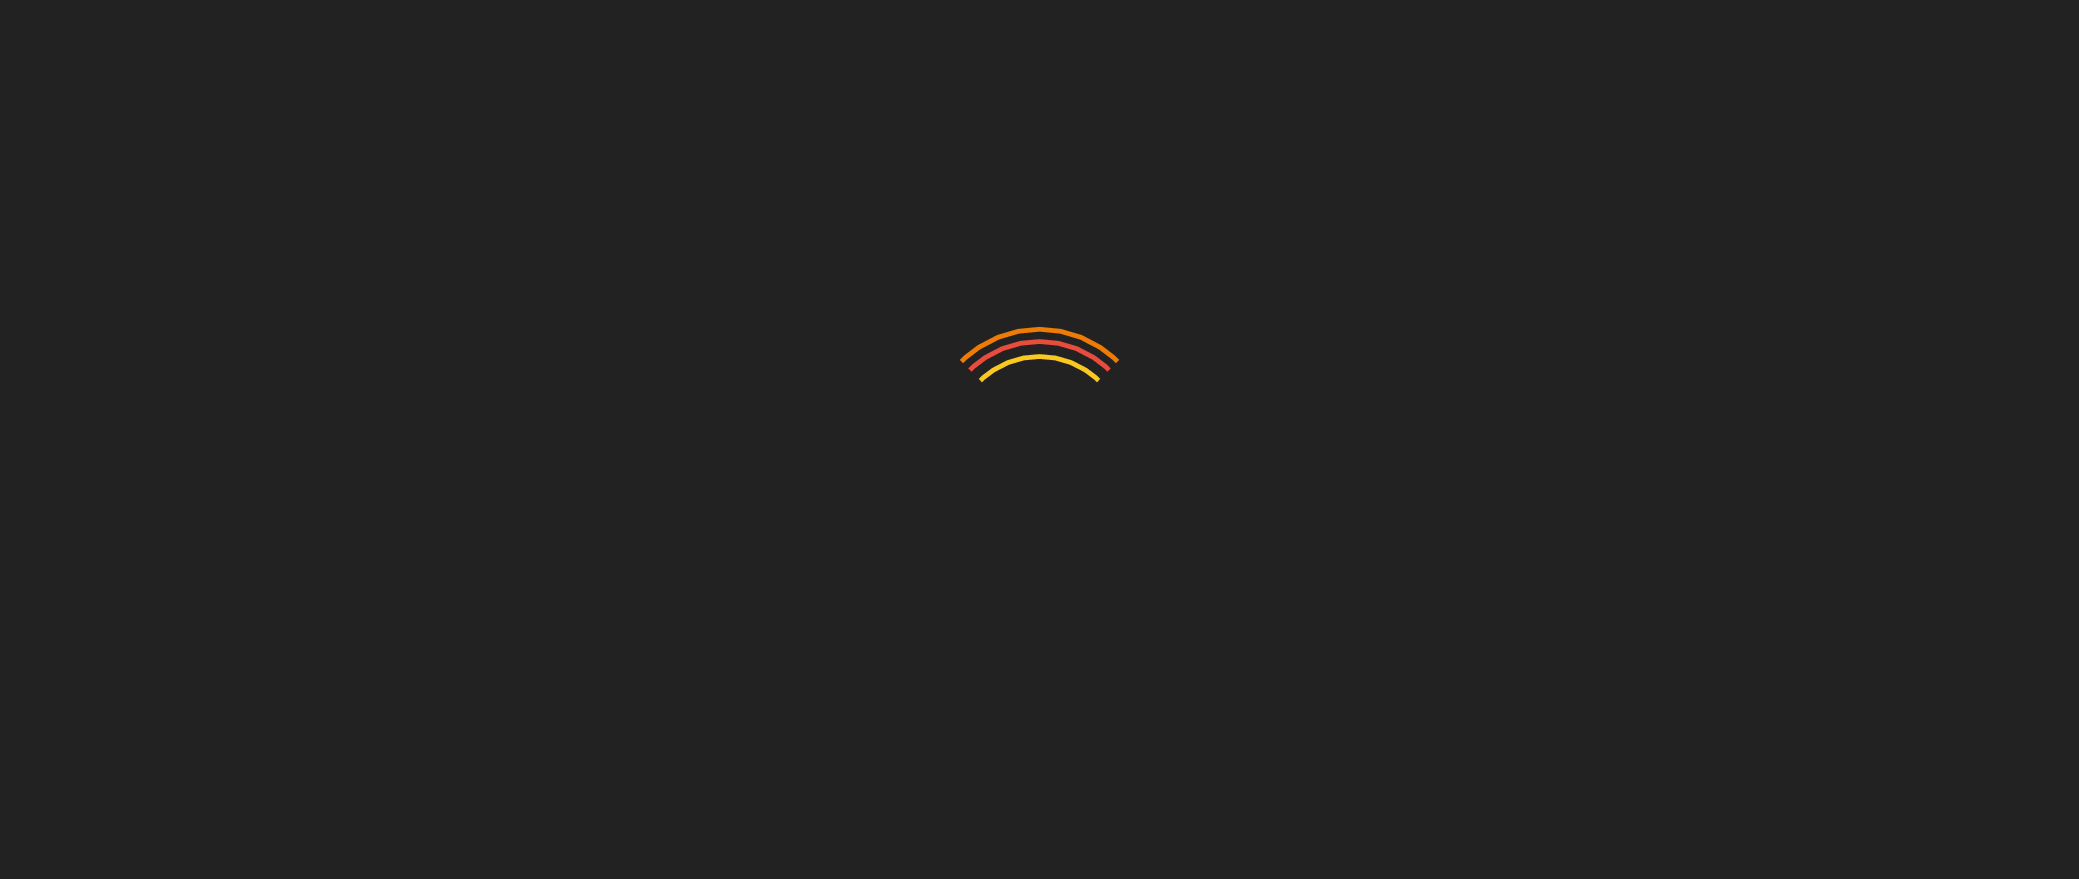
%!PS
<< /PageSize [2079 879] >> setpagedevice
/m/moveto load def
/c/rcurveto load def
/s/stroke load def
/w/setlinewidth load def
/C { dup -16 bitshift 255 div exch dup -8 bitshift 255 and 255 div exch 255 and 255 div setrgbcolor } def
/R { rectfill } def
0 879 translate 1 -1 scale
4 setmiterlimit
16#222222 C
0 0 2079 879 R
16#EF7B07 C
4.5 w
961.5 361.5 m 43 -43 113 -43 156 0 c s
16#E74C3C C
970 370 m 38 -38 101 -38 139 0 c s
16#F9C922 C
980.5 380.5 m 32.5 -32 85.5 -32 118 0 c s
showpage
